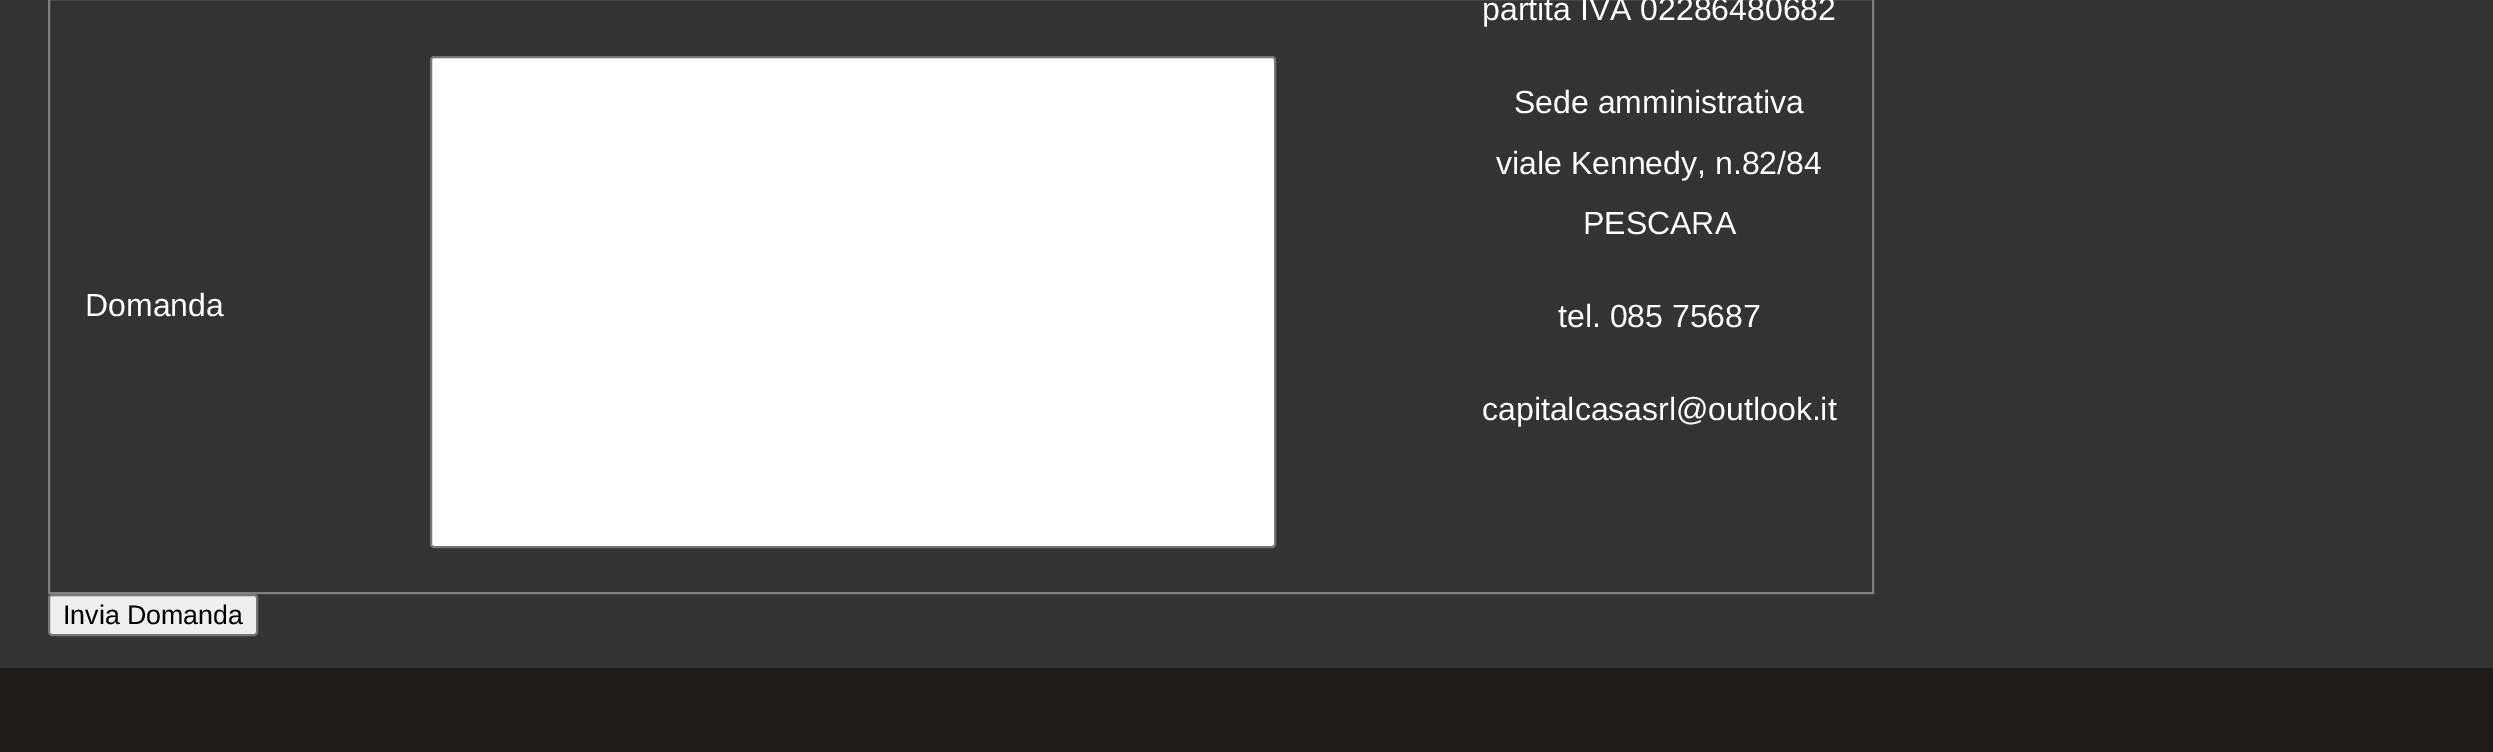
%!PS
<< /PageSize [2493 752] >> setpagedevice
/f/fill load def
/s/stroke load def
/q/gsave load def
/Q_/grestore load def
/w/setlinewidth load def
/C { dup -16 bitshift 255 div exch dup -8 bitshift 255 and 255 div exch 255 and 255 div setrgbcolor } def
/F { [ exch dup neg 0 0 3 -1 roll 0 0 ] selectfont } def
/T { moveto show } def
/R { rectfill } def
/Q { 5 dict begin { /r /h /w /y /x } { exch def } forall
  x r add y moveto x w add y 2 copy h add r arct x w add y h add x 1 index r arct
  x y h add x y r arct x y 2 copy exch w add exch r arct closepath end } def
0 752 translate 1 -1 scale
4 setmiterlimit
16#333333 C
0 0 2493 752 R
16#808080 C
2 w
49 -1 1824 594 rectstroke
/LiberationSans-Regular 32 F
16#FFFFFF C
(Domanda) 85 316 T
431 57 844 490 3 Q q f Q_
16#767676 C
s
16#FFFFFF C
(partita IVA 02286480682) 1482 20 T
(Sede amministrativa) 1514 113 T
(viale Kennedy, n.82/84) 1496 174 T
(PESCARA) 1583 234 T
(tel. 085 75687) 1558 327 T
(capitalcasasrl@outlook.it) 1482 420 T
16#EFEFEF C
49 595 208 40 3 Q q f Q_
16#767676 C
s
/LiberationSans-Regular 26.75 F
16#000000 C
(Invia Domanda) 63 624 T
16#1E1B1A C
0 668 2493 84 R
showpage
